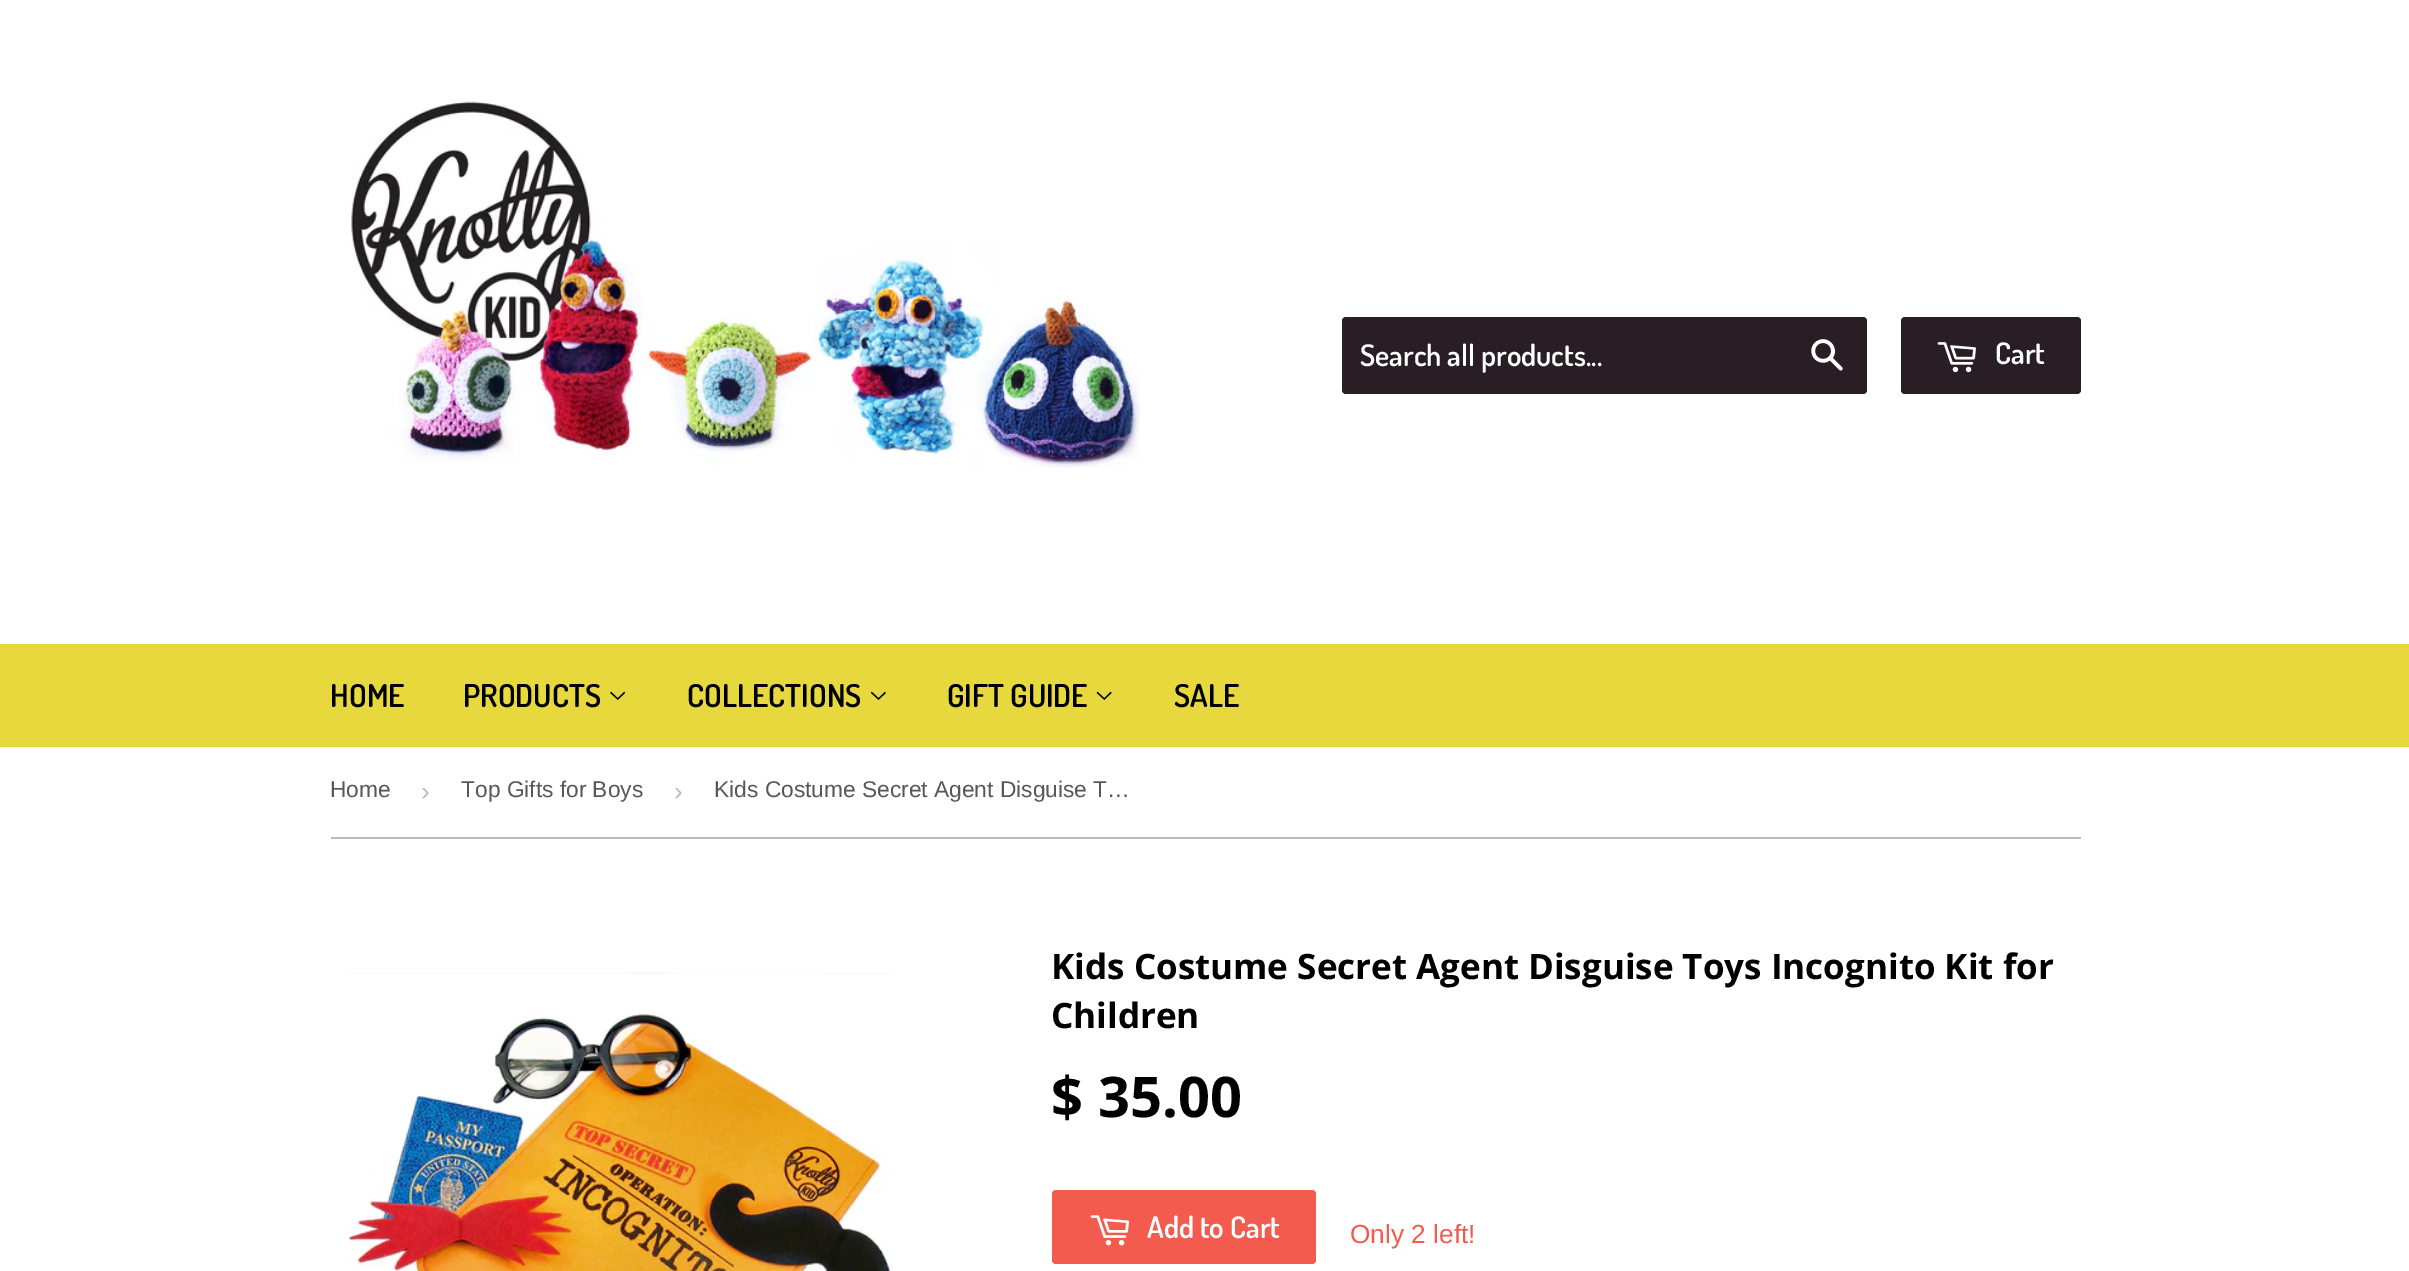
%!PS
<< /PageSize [2409 1271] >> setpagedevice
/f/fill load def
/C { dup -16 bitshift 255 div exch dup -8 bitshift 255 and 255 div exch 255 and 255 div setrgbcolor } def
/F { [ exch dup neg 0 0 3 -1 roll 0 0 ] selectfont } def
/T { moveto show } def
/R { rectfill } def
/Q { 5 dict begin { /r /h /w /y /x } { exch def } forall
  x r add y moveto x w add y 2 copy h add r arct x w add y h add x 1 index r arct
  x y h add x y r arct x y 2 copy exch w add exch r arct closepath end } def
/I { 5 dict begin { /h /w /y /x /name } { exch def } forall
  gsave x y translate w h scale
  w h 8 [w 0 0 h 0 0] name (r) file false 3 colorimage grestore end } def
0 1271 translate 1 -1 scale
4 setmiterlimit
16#FFFFFF C
0 0 2409 1271 R
(1.rgb) 351 101 790 367 I
16#291E24 C
1342 317 525 77 4 Q f
/Dosis-SemiBold 29.75 F
16#FFFFFF C
(Search all products...) 1360 366 T
(2.rgb) 1811 339 32 32 I
16#291E24 C
1901 317 180 77 4 Q f
(3.rgb) 1937 342 39 31 I
16#FFFFFF C
(Cart) 1995 364 T
16#E7D83E C
0 644 2409 103 R
/Dosis-SemiBold 31.5 F
16#000000 C
(HOME) 330 707 T
(PRODUCTS) 463 707 T
(4.rgb) 610 691 15 9 I
(COLLECTIONS) 687 707 T
(5.rgb) 871 691 15 9 I
(GIFT GUIDE) 947 707 T
(6.rgb) 1096 691 16 9 I
(SALE) 1174 707 T
16#BBBBBB C
331 837 1750 2 R
/LiberationSans-Regular 22.75 F
16#585858 C
(Home) 330 797 T
/LiberationSans-Regular 26.25 F
16#BBBBBB C
(›) 421 800 T
/LiberationSans-Regular 22.75 F
16#585858 C
(Top Gifts for Boys) 461 797 T
/LiberationSans-Regular 26.25 F
16#BBBBBB C
(›) 674 800 T
/LiberationSans-Regular 22.75 F
16#585858 C
(Kids Costume Secret Agent Disguise T…) 714 797 T
(7.rgb) 348 972 545 299 I
/OpenSans-Bold 35 F
16#000000 C
(Kids Costume Secret Agent Disguise Toys Incognito Kit for) 1051 979 T
(Children) 1051 1028 T
/OpenSans-Bold 56 F
($ 35.00) 1051 1117 T
16#F45B4F C
1052 1190 264 74 4 Q f
(8.rgb) 1090 1215 39 31 I
/Dosis-SemiBold 29.75 F
16#FFFFFF C
(Add to Cart) 1147 1238 T
/LiberationSans-Regular 26.25 F
16#F45B4F C
(Only 2 left!) 1350 1243 T
showpage
